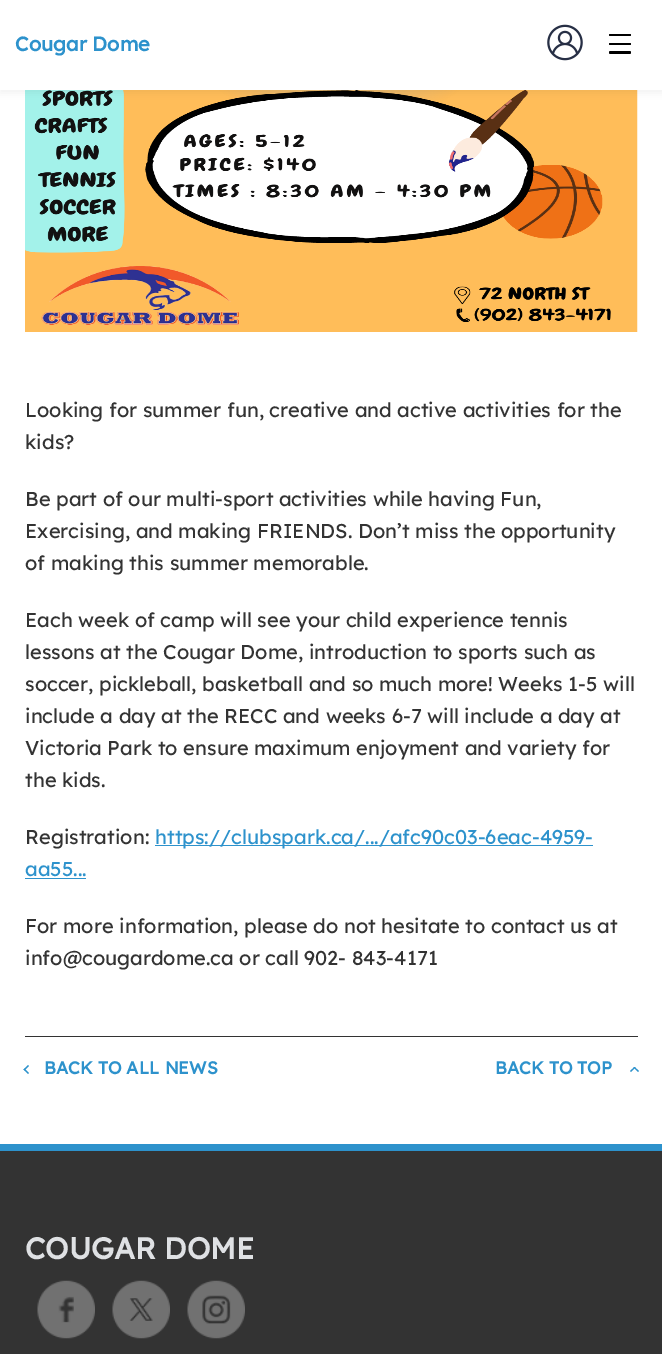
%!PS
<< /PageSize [662 1354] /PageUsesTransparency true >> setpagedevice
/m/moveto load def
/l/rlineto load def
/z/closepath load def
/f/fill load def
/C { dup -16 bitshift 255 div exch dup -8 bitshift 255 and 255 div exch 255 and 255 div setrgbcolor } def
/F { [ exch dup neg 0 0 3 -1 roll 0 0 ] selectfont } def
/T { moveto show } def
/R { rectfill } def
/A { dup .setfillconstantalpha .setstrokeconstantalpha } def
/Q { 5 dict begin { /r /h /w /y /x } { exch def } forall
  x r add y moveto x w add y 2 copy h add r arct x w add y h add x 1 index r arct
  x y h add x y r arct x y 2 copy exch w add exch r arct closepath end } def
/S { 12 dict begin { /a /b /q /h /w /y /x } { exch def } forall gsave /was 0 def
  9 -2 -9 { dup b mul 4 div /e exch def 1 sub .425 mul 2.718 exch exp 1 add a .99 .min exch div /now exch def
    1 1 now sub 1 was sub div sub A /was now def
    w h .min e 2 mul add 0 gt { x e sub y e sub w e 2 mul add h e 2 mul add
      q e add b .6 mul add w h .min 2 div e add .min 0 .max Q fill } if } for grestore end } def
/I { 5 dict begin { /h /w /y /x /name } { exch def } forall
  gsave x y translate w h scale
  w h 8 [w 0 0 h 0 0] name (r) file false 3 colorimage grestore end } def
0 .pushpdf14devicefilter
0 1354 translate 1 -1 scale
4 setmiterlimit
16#333333 C
0 0 662 1354 R
16#FFFFFF C
0 90 662 1054 R
(2.rgb) 25 90 613 242 I
16#000000 C
0 3 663 90 0 4 .06 S
16#FFFFFF C
0 0 662 90 R
/Lexend-Bold 20 F
16#2D92CC C
(Cougar Dome) 15 51 T
(1.rgb) 547 24 36 37 I
16#000000 C
609 34 22 2 1 Q f
609 43 22 2 1 Q f
609 51 22 3 1.5 Q f
/Lexend-Regular 20 F
16#333333 C
(Looking for summer fun, creative and active activities for the) 25 417 T
(kids?) 25 449 T
(Be part of our multi-sport activities while having Fun,) 25 506 T
(Exercising, and making FRIENDS. Don’t miss the opportunity) 25 538 T
(of making this summer memorable.) 25 570 T
(Each week of camp will see your child experience tennis) 25 627 T
(lessons at the Cougar Dome, introduction to sports such as) 25 659 T
(soccer, pickleball, basketball and so much more! Weeks 1-5 will) 25 691 T
(include a day at the RECC and weeks 6-7 will include a day at) 25 723 T
(Victoria Park to ensure maximum enjoyment and variety for) 25 755 T
(the kids.) 25 787 T
(Registration:) 25 844 T
16#2D92CC C
155 845 438 1 R
(https://clubspark.ca/.../afc90c03-6eac-4959-) 155 844 T
(aa55...) 25 876 T
25 878 61 1 R
16#333333 C
(For more information, please do not hesitate to contact us at) 25 933 T
(info@cougardome.ca or call 902- 843-4171) 25 965 T
25 1036 613 1 R
16#2D92CC C
29 1073 m -1 1 l -4.5 -4.5 l 1 -1 l z f
29 1066 m -4.5 4.5 l -1 -1 l 4.5 -4.5 l z f
/Lexend-Bold 17.5 F
(BACK TO ALL NEWS) 44 1074 T
(BACK TO TOP) 495 1074 T
631 1072 m -1 -1 l 4.5 -4 l 1 .5 l z f
638 1072 m -4.5 -4.5 l 1 -.5 l 4.5 4 l z f
0 1144 662 7 R
/Lexend-Bold 30 F
16#DFE1E4 C
(COUGAR DOME) 25 1259 T
(3.rgb) 37 1280 58 59 I
(4.rgb) 112 1280 58 59 I
(5.rgb) 187 1280 58 59 I
.poppdf14devicefilter showpage
